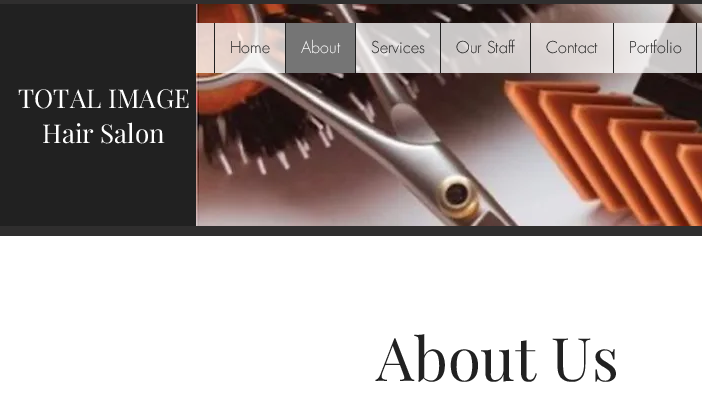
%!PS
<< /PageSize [702 417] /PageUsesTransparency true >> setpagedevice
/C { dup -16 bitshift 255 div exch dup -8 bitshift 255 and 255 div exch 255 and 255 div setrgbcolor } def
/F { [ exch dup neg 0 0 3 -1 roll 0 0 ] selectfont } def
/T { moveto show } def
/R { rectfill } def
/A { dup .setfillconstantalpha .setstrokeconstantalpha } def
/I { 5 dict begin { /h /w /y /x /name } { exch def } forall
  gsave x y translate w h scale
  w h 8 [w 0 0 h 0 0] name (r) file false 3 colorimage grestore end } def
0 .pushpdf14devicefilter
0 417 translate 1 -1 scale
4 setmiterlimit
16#FFFFFF C
0 0 702 417 R
16#2F2E2E C
0 0 702 236 R
16#212121 C
0 4 196 222 R
(1.rgb) 196 4 506 222 I
0.77 A
16#FFFFFF C
196 23 506 50 R
1 A
16#212121 C
214 23 1 50 R
/futura-Light 16 F
(Home) 230 53 T
16#757575 C
286 23 69 50 R
16#212121 C
285 23 1 50 R
16#FFFFFF C
(About) 301 53 T
16#212121 C
355 23 1 50 R
(Services) 371 53 T
440 23 1 50 R
(Our Staff) 456 53 T
530 23 1 50 R
(Contact) 546 53 T
613 23 1 50 R
(Portfolio) 629 53 T
696 23 1 50 R
/PlayfairDisplay-Regular 26 F
16#FFFFFF C
(TOTAL IMAGE) 18 108 T
(Hair Salon) 42 143 T
/PlayfairDisplay-Regular 60 F
16#212121 C
(About Us) 376 381 T
.poppdf14devicefilter showpage
